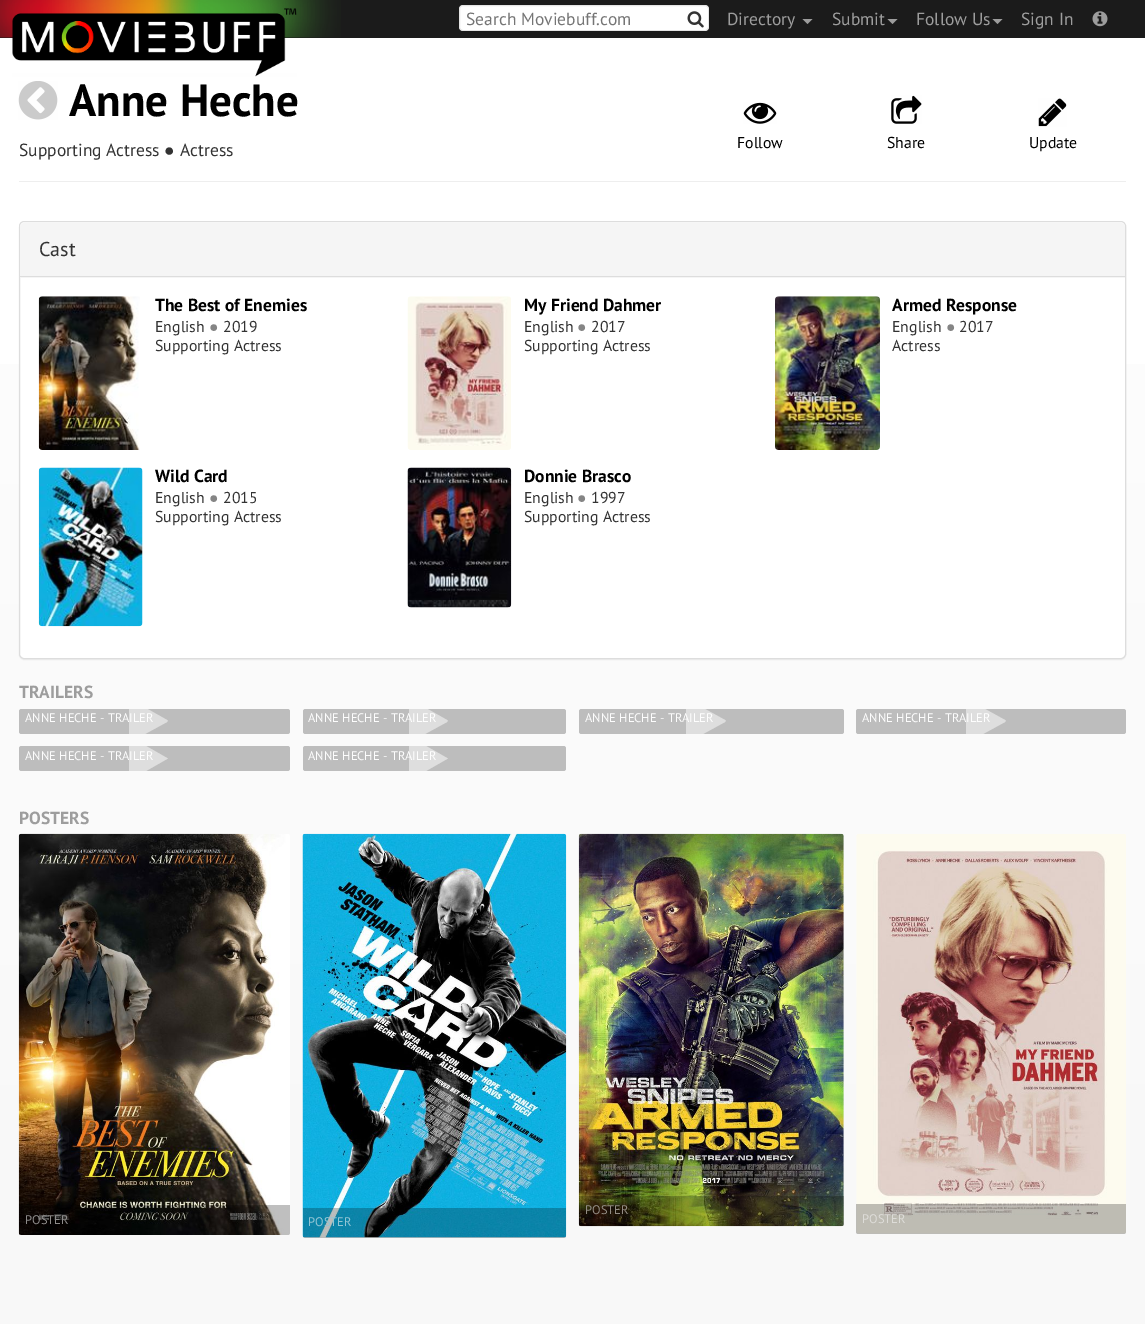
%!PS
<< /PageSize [1145 1324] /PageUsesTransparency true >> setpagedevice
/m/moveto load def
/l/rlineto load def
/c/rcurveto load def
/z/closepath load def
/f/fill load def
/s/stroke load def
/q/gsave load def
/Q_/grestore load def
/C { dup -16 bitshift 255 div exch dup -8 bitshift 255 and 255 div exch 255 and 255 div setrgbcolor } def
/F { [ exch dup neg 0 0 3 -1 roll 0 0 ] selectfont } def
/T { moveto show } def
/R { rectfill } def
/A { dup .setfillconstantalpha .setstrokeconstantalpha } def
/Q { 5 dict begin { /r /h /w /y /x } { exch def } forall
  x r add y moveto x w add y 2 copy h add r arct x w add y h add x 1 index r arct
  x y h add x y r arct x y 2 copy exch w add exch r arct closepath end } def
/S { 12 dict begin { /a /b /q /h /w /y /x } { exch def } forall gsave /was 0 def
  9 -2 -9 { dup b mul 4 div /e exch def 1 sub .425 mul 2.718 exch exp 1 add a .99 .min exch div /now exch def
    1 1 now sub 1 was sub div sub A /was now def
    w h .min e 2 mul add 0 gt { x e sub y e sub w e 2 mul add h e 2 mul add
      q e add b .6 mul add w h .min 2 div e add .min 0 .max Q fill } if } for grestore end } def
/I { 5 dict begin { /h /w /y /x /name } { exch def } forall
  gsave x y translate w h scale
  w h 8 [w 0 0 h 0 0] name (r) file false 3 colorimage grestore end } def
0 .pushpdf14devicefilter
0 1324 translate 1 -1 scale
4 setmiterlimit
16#FFFFFF C
0 0 1145 1324 R
q 0 364 m 1145 0 l 0 960 l -1145 0 l z clip newpath
<< /ShadingType 2 /ColorSpace /DeviceRGB /Coords [572 0 573 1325] /Extend [true true] /Function << /FunctionType 3 /Domain [0 1] /Functions [<< /FunctionType 2 /Domain [0 1] /C0 [1 1 1] /C1 [.988 .988 .988] /N 1 >> << /FunctionType 2 /Domain [0 1] /C0 [.988 .988 .988] /C1 [.98 .98 .98] /N 1 >> << /FunctionType 2 /Domain [0 1] /C0 [.98 .98 .98] /C1 [.973 .973 .973] /N 1 >>] /Bounds [.33 .67] /Encode [0 1 0 1 0 1] >> >> shfill Q_
16#1B1B1B C
0 0 1145 38 R
(1.rgb) 0 0 341 38 I
(2.rgb) 12 8 285 69 I
16#FFFFFF C
459 5 250 26 4 Q f
0.1 A
16#000000 C
459.5 5.5 249 25 3.5 Q s
/PTSans-Regular 17.5 F
1 A
16#757575 C
(Search Moviebuff.com) 466 25 T
(3.rgb) 687 11 17 17 I
16#9D9D9D C
(Directory) 727 25 T
802.5 19 m 10 0 l -5 5 l z f
(Submit) 832 25 T
887.5 19 m 10 0 l -5 5 l z f
(Follow Us) 916 25 T
992.5 19 m 10 0 l -5 5 l z f
(Sign In) 1021 25 T
(4.rgb) 1092 11 16 16 I
(5.rgb) 18 81 40 39 I
/PTSans-Bold 45 F
16#000000 C
(Anne Heche) 69 116 T
/PTSans-Regular 17.5 F
16#333333 C
(Supporting Actress) 19 156 T
/LiberationSerif-Regular 17.5 F
(●) 164 156 T
/PTSans-Regular 17.5 F
(Actress) 180 156 T
(6.rgb) 743 102 34 22 I
/PTSans-Regular 15.75 F
16#000000 C
(Follow) 737 148 T
(7.rgb) 891 95 31 29 I
(Share) 887 148 T
(8.rgb) 1038 98 29 29 I
(Update) 1029 148 T
16#EEEEEE C
19 181 1107 1 R
16#000000 C
19 223 1107 437 5 .5 .05 S
16#FFFFFF C
19.5 221.5 1106 437 4.5 Q q f Q_
16#DDDDDD C
s
16#F5F5F5 C
24 223 m 1097 0 l 2 0 4 2 4 4 c 0 51 l -1105 0 l 0 -51 l 0 -2 2 -4 4 -4 c z f
16#DDDDDD C
20 276 1105 1 R
/PTSans-Regular 20 F
16#333333 C
(Cast) 39 256 T
(9.rgb) 38 296 102 154 I
/PTSans-Bold 17.5 F
16#000000 C
(The Best of Enemies) 155 311 T
/PTSans-Regular 15.75 F
16#333333 C
(English) 155 332 T
/LiberationSerif-Regular 15.75 F
16#858585 C
(●) 209 332 T
/PTSans-Regular 15.75 F
16#333333 C
(2019) 223 332 T
(Supporting Actress) 155 351 T
(10.rgb) 407 296 104 154 I
/PTSans-Bold 17.5 F
16#000000 C
(My Friend Dahmer) 524 311 T
/PTSans-Regular 15.75 F
16#333333 C
(English) 524 332 T
/LiberationSerif-Regular 15.75 F
16#858585 C
(●) 577 332 T
/PTSans-Regular 15.75 F
16#333333 C
(2017) 591 332 T
(Supporting Actress) 524 351 T
(11.rgb) 775 296 105 154 I
/PTSans-Bold 17.5 F
16#000000 C
(Armed Response) 892 311 T
/PTSans-Regular 15.75 F
16#333333 C
(English) 892 332 T
/LiberationSerif-Regular 15.75 F
16#858585 C
(●) 946 332 T
/PTSans-Regular 15.75 F
16#333333 C
(2017) 959 332 T
(Actress) 892 351 T
(12.rgb) 38 467 105 160 I
/PTSans-Bold 17.5 F
16#000000 C
(Wild Card) 155 482 T
/PTSans-Regular 15.75 F
16#333333 C
(English) 155 503 T
/LiberationSerif-Regular 15.75 F
16#858585 C
(●) 209 503 T
/PTSans-Regular 15.75 F
16#333333 C
(2015) 223 503 T
(Supporting Actress) 155 522 T
(13.rgb) 407 467 105 141 I
/PTSans-Bold 17.5 F
16#000000 C
(Donnie Brasco) 524 482 T
/PTSans-Regular 15.75 F
16#333333 C
(English) 524 503 T
/LiberationSerif-Regular 15.75 F
16#858585 C
(●) 577 503 T
/PTSans-Regular 15.75 F
16#333333 C
(1997) 591 503 T
(Supporting Actress) 524 522 T
/PTSans-Bold 17.5 F
16#9D9D9D C
(TRAILERS) 19 698 T
16#BDBDBD C
19 709 271 25 2.5 Q f
/PTSans-Regular 12.5 F
16#FDFDFD C
(ANNE HECHE - TRAILER) 25 722 T
0.5 A
16#FFFFFF C
167 722 m -22 12 l -16 0 l 0 -25 l 18.5 0 l 19.5 11 l 1 0 1 1 0 2 c z f
1 A
16#BDBDBD C
19 746 271 25 2.5 Q f
16#FDFDFD C
(ANNE HECHE - TRAILER) 25 760 T
0.5 A
16#FFFFFF C
167 759 m -21 12 l -17 0 l 0 -25 l 17 0 l 21 12 l 1 0 1 1 0 1 c z f
1 A
16#BDBDBD C
303 709 263 25 2.5 Q f
16#FDFDFD C
(ANNE HECHE - TRAILER) 308 722 T
0.5 A
16#FFFFFF C
447 722 m -22 12 l -16 0 l 0 -25 l 18.5 0 l 19.5 11 l 1 0 1 1 0 2 c z f
1 A
16#BDBDBD C
303 746 263 25 2.5 Q f
16#FDFDFD C
(ANNE HECHE - TRAILER) 308 760 T
0.5 A
16#FFFFFF C
447 759 m -21 12 l -17 0 l 0 -25 l 17 0 l 21 12 l 1 0 1 1 0 1 c z f
1 A
16#BDBDBD C
579 709 265 25 2.5 Q f
16#FDFDFD C
(ANNE HECHE - TRAILER) 585 722 T
0.5 A
16#FFFFFF C
725 722 m -22 12 l -17 0 l 0 -25 l 19 0 l 20 11 l 1 0 1 1 0 2 c z f
1 A
16#BDBDBD C
856 709 270 25 2.5 Q f
16#FDFDFD C
(ANNE HECHE - TRAILER) 862 722 T
0.5 A
16#FFFFFF C
1005 722 m -22 12 l -17 0 l 0 -25 l 19 0 l 20 11 l 1 0 1 1 0 2 c z f
/PTSans-Bold 17.5 F
1 A
16#9D9D9D C
(POSTERS) 19 824 T
(14.rgb) 578 833 266 394 I
0.25 A
16#000000 C
579 1196 m 265 0 l 0 27.5 l 0 1.5 -1 2.5 -2.5 2.5 c -260 0 l -1.5 0 -2.5 -1 -2.5 -2.5 c z f
/PTSans-Regular 12.5 F
1 A
16#928C84 C
(POSTER) 585 1214 T
(15.rgb) 18 833 272 402 I
0.25 A
16#000000 C
19 1205 m 271 0 l 0 27.5 l 0 1.5 -1 2.5 -2.5 2.5 c -266 0 l -1.5 0 -2.5 -1 -2.5 -2.5 c z f
1 A
16#8D8B8A C
(POSTER) 25 1224 T
(16.rgb) 302 833 265 405 I
0.25 A
16#000000 C
303 1208 m 263 0 l 0 27.5 l 0 1.5 -1 2.5 -2.5 2.5 c -258 0 l -1.5 0 -2.5 -1 -2.5 -2.5 c z f
1 A
16#92C5D4 C
(POSTER) 308 1226 T
(17.rgb) 856 834 270 400 I
0.25 A
16#000000 C
856 1204 m 270 0 l 0 27.5 l 0 1.5 -1 2.5 -2.5 2.5 c -265 0 l -1.5 0 -2.5 -1 -2.5 -2.5 c z f
1 A
16#DDDCD8 C
(POSTER) 862 1223 T
.poppdf14devicefilter showpage
